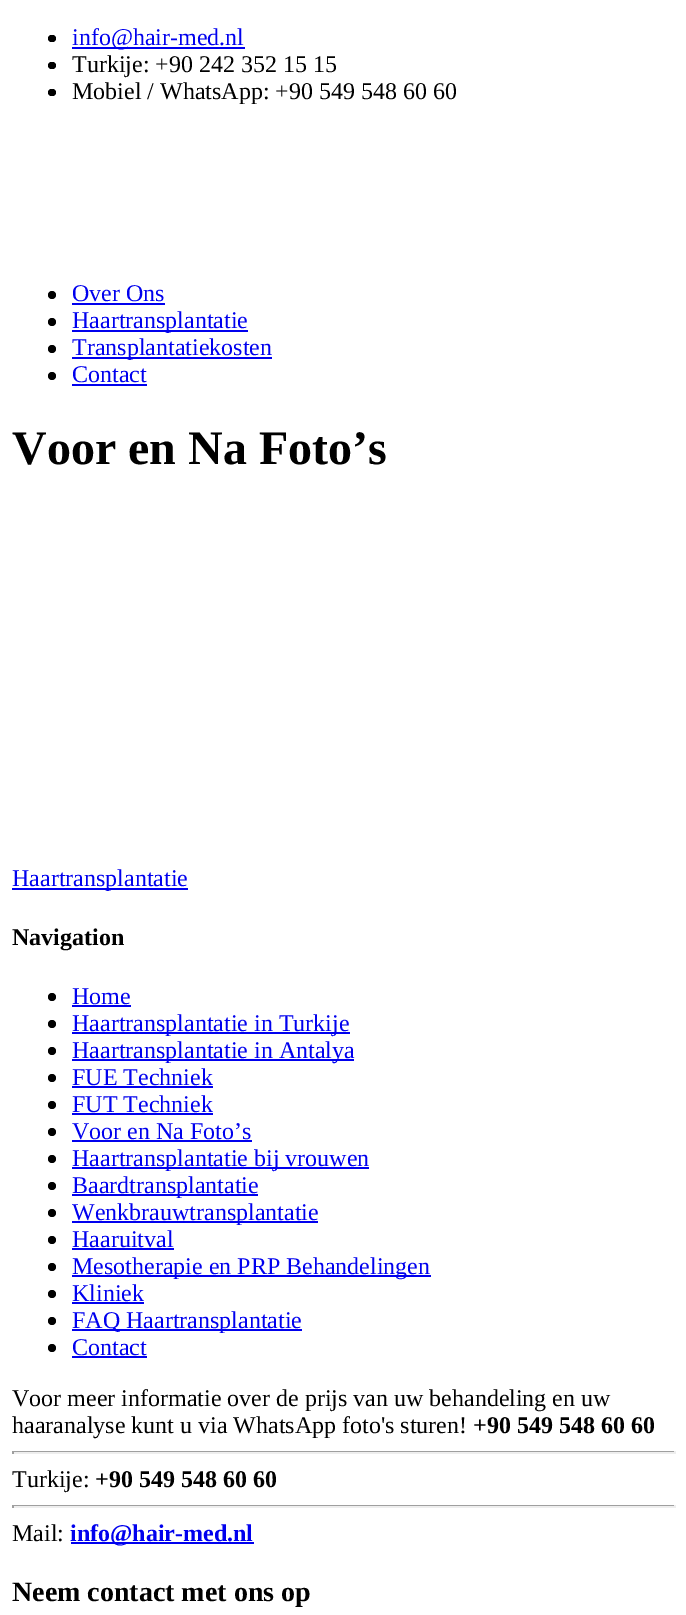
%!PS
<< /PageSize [686 1615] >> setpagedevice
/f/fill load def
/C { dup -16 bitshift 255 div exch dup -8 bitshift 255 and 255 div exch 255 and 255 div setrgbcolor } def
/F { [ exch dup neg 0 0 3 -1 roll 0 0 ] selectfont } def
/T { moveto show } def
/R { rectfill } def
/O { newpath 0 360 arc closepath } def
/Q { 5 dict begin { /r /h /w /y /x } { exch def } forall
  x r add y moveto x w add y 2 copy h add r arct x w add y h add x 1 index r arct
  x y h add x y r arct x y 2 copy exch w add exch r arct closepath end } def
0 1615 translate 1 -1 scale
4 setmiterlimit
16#FFFFFF C
0 0 686 1615 R
16#000000 C
48 35 8 7 3.5 Q f
16#0000EE C
72 47 173 2 R
/LiberationSerif-Regular 24 F
(info@hair-med.nl) 72 45 T
16#000000 C
48 62 8 7 3.5 Q f
(Turkije: +90 242 352 15 15) 72 72 T
48 89 8 7 3.5 Q f
(Mobiel / WhatsApp: +90 549 548 60 60) 72 99 T
52 295 4 O f
16#0000EE C
(Over Ons) 72 301 T
72 303 93 2 R
16#000000 C
52 322 4 O f
16#0000EE C
72 330 176 2 R
(Haartransplantatie) 72 328 T
16#000000 C
52 349 4 O f
16#0000EE C
72 357 200 2 R
(Transplantatiekosten) 72 355 T
16#000000 C
52 376 4 O f
16#0000EE C
(Contact) 72 382 T
72 384 75 2 R
/LiberationSerif-Bold 48 F
16#000000 C
(Voor en Na Foto’s) 12 464 T
16#0000EE C
12 888 176 2 R
/LiberationSerif-Regular 24 F
(Haartransplantatie) 12 886 T
/LiberationSerif-Bold 24 F
16#000000 C
(Navigation) 12 945 T
52 997 4 O f
/LiberationSerif-Regular 24 F
16#0000EE C
(Home) 72 1004 T
72 1005 59 2 R
16#000000 C
52 1024 4 O f
16#0000EE C
72 1032 278 2 R
(Haartransplantatie in Turkije) 72 1031 T
16#000000 C
52 1051 4 O f
16#0000EE C
72 1059 282 2 R
(Haartransplantatie in Antalya) 72 1058 T
16#000000 C
52 1078 4 O f
16#0000EE C
(FUE Techniek) 72 1085 T
72 1086 141 2 R
16#000000 C
52 1105 4 O f
16#0000EE C
(FUT Techniek) 72 1112 T
72 1113 141 2 R
16#000000 C
52 1132 4 O f
16#0000EE C
(Voor en Na Foto’s) 72 1139 T
72 1140 180 2 R
16#000000 C
52 1159 4 O f
16#0000EE C
72 1167 297 2 R
(Haartransplantatie bij vrouwen) 72 1166 T
16#000000 C
52 1186 4 O f
16#0000EE C
72 1194 186 2 R
(Baardtransplantatie) 72 1193 T
16#000000 C
52 1213 4 O f
16#0000EE C
72 1221 246 2 R
(Wenkbrauwtransplantatie) 72 1220 T
16#000000 C
52 1240 4 O f
16#0000EE C
(Haaruitval) 72 1247 T
72 1248 102 2 R
16#000000 C
52 1267 4 O f
16#0000EE C
72 1275 359 2 R
(Mesotherapie en PRP Behandelingen) 72 1274 T
16#000000 C
52 1294 4 O f
16#0000EE C
(Kliniek) 72 1301 T
72 1302 72 2 R
16#000000 C
52 1321 4 O f
16#0000EE C
72 1329 230 2 R
(FAQ Haartransplantatie) 72 1328 T
16#000000 C
52 1348 4 O f
16#0000EE C
(Contact) 72 1355 T
72 1356 75 2 R
16#000000 C
(Voor meer informatie over de prijs van uw behandeling en uw) 12 1406 T
(haaranalyse kunt u via WhatsApp foto's sturen!) 12 1433 T
/LiberationSerif-Bold 24 F
(+90 549 548 60 60) 473 1433 T
16#9F9F9F C
12 1451 663 1 R
16#EEEEEE C
674 1451 2 3 R
12 1452 663 2 R
16#9F9F9F C
12 1451 2 3 R
/LiberationSerif-Regular 24 F
16#000000 C
(Turkije:) 12 1487 T
/LiberationSerif-Bold 24 F
(+90 549 548 60 60) 95 1487 T
16#9F9F9F C
12 1505 663 1 R
16#EEEEEE C
674 1505 2 3 R
12 1506 663 2 R
16#9F9F9F C
12 1505 2 3 R
/LiberationSerif-Regular 24 F
16#000000 C
(Mail:) 12 1541 T
16#0000EE C
71 1542 183 2 R
/LiberationSerif-Bold 24 F
(info@hair-med.nl) 70 1541 T
/LiberationSerif-Bold 28 F
16#000000 C
(Neem contact met ons op) 12 1601 T
showpage
